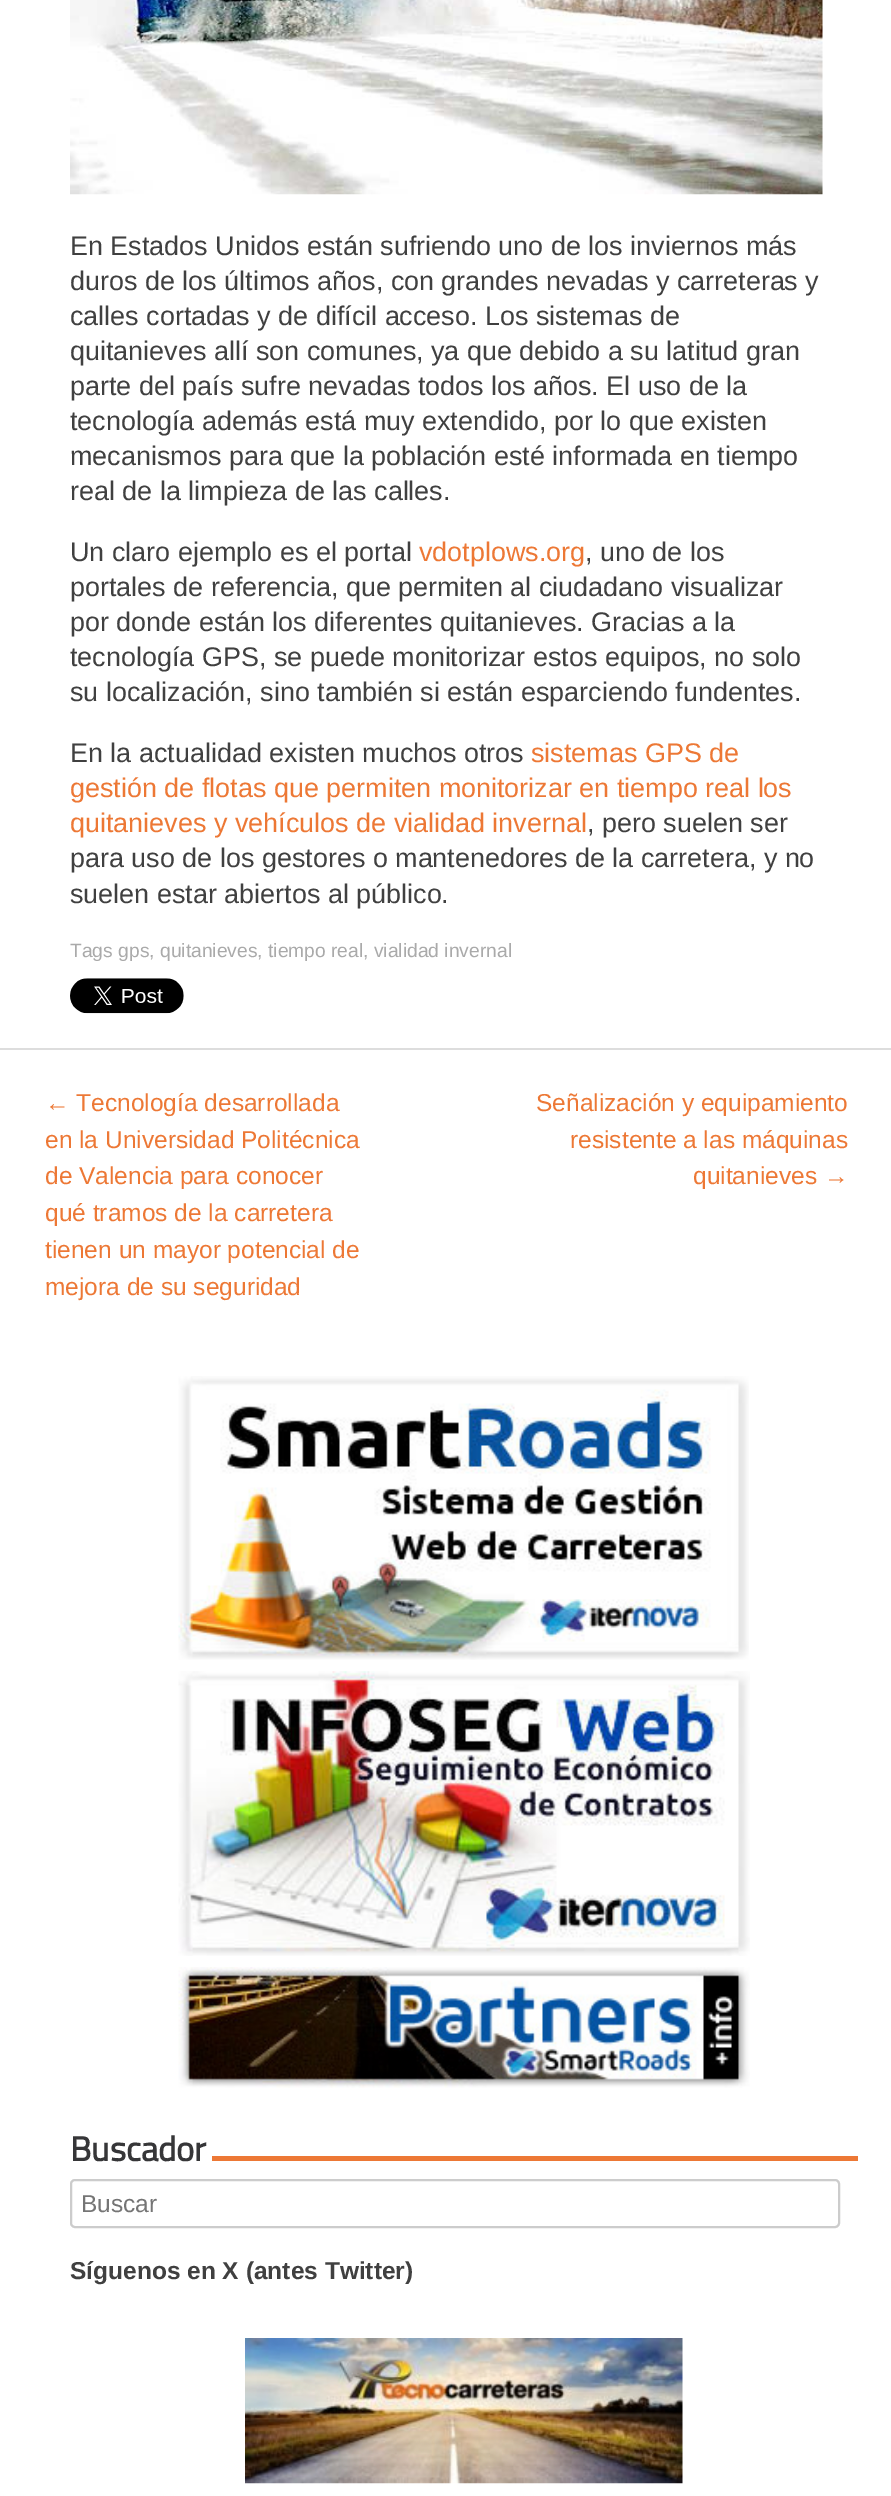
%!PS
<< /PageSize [891 2496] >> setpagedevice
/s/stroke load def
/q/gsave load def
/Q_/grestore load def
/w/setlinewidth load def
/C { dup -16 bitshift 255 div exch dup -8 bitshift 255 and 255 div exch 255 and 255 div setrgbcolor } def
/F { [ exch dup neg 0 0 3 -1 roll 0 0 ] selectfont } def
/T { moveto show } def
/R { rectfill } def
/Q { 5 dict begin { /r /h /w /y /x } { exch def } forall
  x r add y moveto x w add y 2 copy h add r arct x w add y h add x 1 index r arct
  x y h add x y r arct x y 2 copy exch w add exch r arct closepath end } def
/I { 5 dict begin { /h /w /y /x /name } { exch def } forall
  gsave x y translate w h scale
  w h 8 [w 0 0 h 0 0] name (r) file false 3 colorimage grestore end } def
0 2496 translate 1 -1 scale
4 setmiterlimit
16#FFFFFF C
0 0 891 2496 R
16#DDDDDD C
0 1048 891 2 R
(1.rgb) 70 0 753 195 I
/LiberationSans-Regular 26.95 F
16#404040 C
(En Estados Unidos están sufriendo uno de los inviernos más) 70 255 T
(duros de los últimos años, con grandes nevadas y carreteras y) 70 290 T
(calles cortadas y de difícil acceso. Los sistemas de) 70 325 T
(quitanieves allí son comunes, ya que debido a su latitud gran) 70 360 T
(parte del país sufre nevadas todos los años. El uso de la) 70 395 T
(tecnología además está muy extendido, por lo que existen) 70 430 T
(mecanismos para que la población esté informada en tiempo) 70 465 T
(real de la limpieza de las calles.) 70 500 T
(Un claro ejemplo es el portal) 70 561 T
16#ED7835 C
(vdotplows.org) 419 561 T
16#404040 C
(, uno de los) 585 561 T
(portales de referencia, que permiten al ciudadano visualizar) 70 596 T
(por donde están los diferentes quitanieves. Gracias a la) 70 631 T
(tecnología GPS, se puede monitorizar estos equipos, no solo) 70 666 T
(su localización, sino también si están esparciendo fundentes.) 70 701 T
(En la actualidad existen muchos otros) 70 762 T
16#ED7835 C
(sistemas GPS de) 531 762 T
(gestión de flotas que permiten monitorizar en tiempo real los) 70 797 T
(quitanieves y vehículos de vialidad invernal) 70 832 T
16#404040 C
(, pero suelen ser) 587 832 T
(para uso de los gestores o mantenedores de la carretera, y no) 70 867 T
(suelen estar abiertos al público.) 70 903 T
/LiberationSans-Regular 19.25 F
16#AAAAAA C
(Tags gps, quitanieves, tiempo real, vialidad invernal) 70 957 T
(2.rgb) 70 978 114 36 I
/LiberationSans-Regular 24.5 F
16#ED7835 C
(← Tecnología desarrollada) 45 1111 T
q
46 1085 803 221 rectclip
(en la Universidad Politécnica) 45 1148 T
(de Valencia para conocer) 45 1184 T
(qué tramos de la carretera) 45 1221 T
Q_
(tienen un mayor potencial de) 45 1258 T
(mejora de su seguridad) 45 1295 T
(Señalización y equipamiento) 536 1111 T
(resistente a las máquinas) 570 1148 T
(quitanieves →) 693 1184 T
(3.rgb) 178 1376 571 284 I
(4.rgb) 178 1671 572 285 I
(5.rgb) 178 1967 572 121 I
/TitilliumWeb-Bold 34.5 F
16#363638 C
(Buscador) 70 2161 T
16#ED7835 C
212 2156 646 5 R
16#CCCCCC C
2 w
71 2180 768 47 4 Q s
/LiberationSans-Regular 24.5 F
16#757575 C
(Buscar) 81 2212 T
/LiberationSans-Bold 24.5 F
16#404040 C
(Síguenos en X \(antes Twitter\)) 70 2279 T
(6.rgb) 245 2338 438 146 I
showpage
